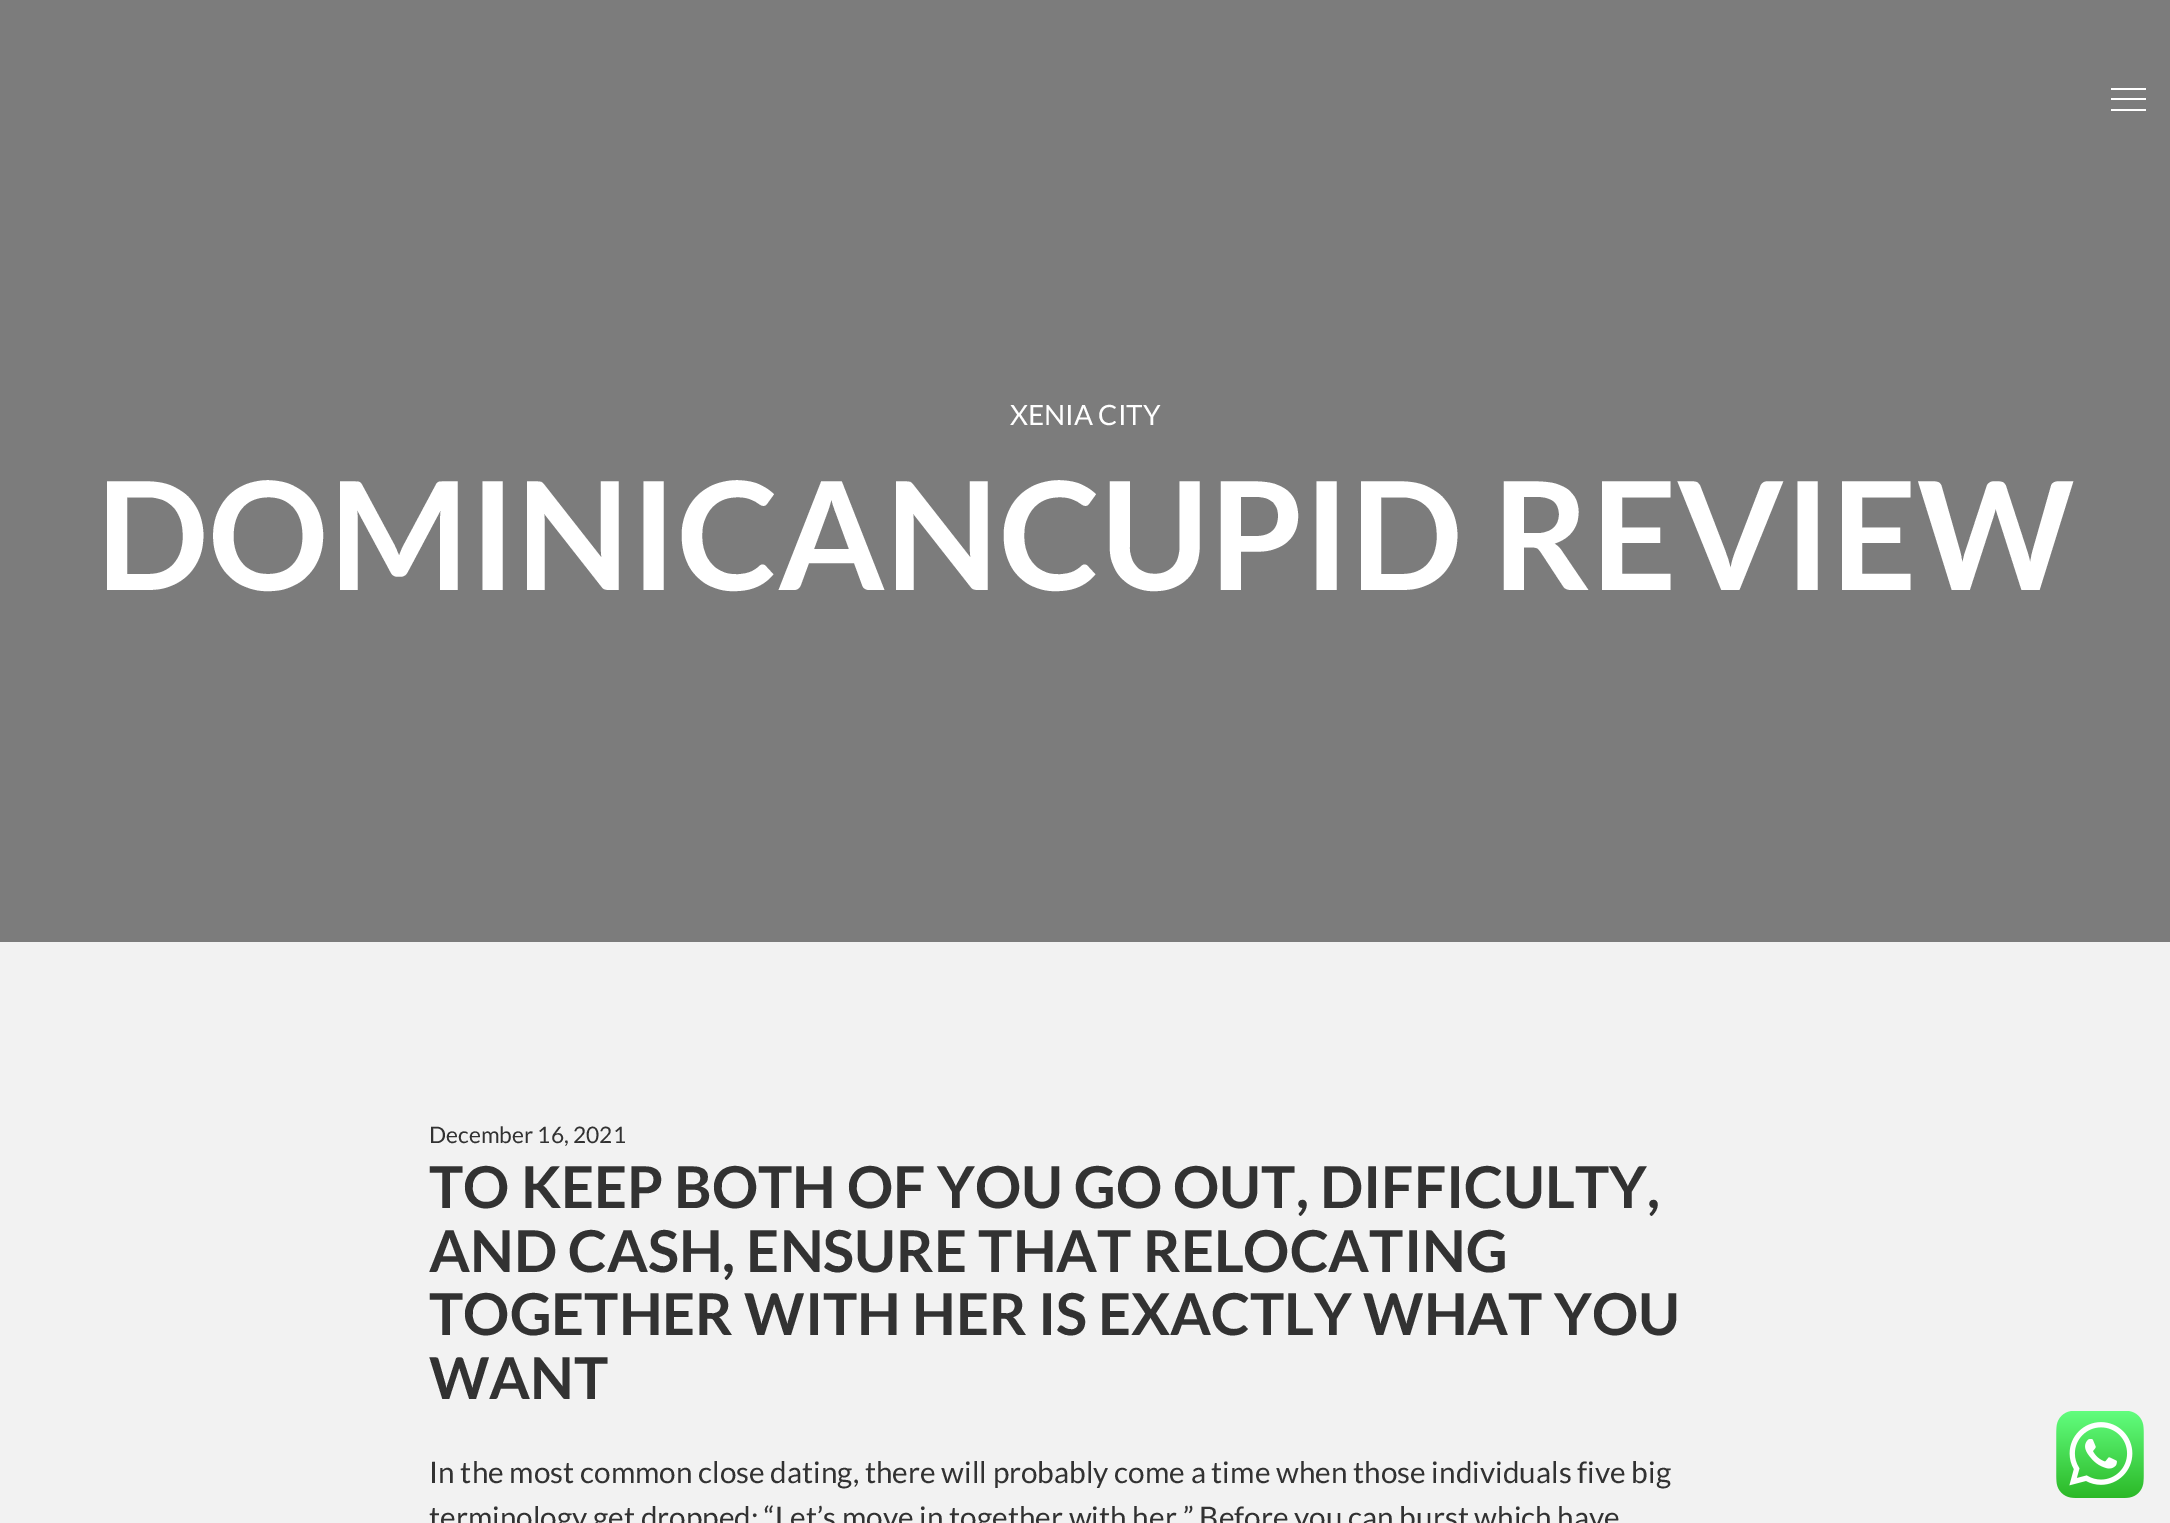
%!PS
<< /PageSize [2170 1523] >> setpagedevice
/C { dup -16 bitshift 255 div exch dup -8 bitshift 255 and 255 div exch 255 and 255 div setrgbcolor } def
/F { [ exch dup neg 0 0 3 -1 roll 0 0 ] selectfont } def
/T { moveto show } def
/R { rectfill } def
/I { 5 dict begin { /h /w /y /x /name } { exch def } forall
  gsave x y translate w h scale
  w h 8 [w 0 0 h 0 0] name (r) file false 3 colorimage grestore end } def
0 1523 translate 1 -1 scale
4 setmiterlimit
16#F2F2F2 C
0 0 2170 1523 R
16#7C7C7C C
0 0 2170 942 R
16#FFFFFF C
2111 88 35 2 R
2111 98 35 2 R
2111 109 35 2 R
/Lato-Regular 28 F
(XENIA CITY) 1010 425 T
/Lato-Bold 150.5 F
(DOMINICANCUPID REVIEW) 96 590 T
/Lato-Regular 22.75 F
16#323232 C
(December 16, 2021) 429 1143 T
/Lato-Bold 57.75 F
(TO KEEP BOTH OF YOU GO OUT, DIFFICULTY,) 429 1208 T
(AND CASH, ENSURE THAT RELOCATING) 429 1272 T
(TOGETHER WITH HER IS EXACTLY WHAT YOU) 429 1335 T
(WANT) 429 1399 T
/Lato-Regular 29.75 F
(In the most common close dating, there will probably come a time when those individuals five big) 429 1483 T
(terminology get dropped: “Let’s move in together with her.” Before you can burst which have) 429 1528 T
(1.rgb) 2056 1411 88 87 I
showpage
